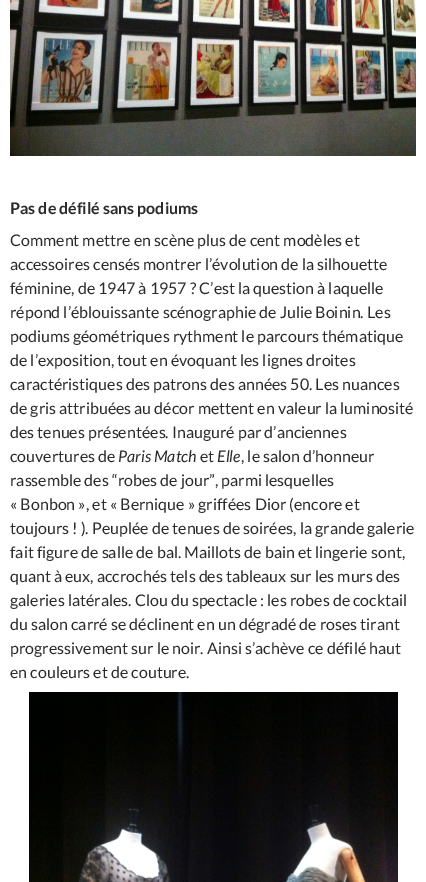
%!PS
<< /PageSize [426 882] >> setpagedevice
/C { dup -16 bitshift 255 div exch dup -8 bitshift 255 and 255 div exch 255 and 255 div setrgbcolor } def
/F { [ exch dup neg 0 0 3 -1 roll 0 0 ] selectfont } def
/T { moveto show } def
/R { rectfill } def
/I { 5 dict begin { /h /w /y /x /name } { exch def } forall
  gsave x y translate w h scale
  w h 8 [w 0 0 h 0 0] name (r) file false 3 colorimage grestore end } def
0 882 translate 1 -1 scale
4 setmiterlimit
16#FFFFFF C
0 0 426 882 R
(1.rgb) 10 0 406 156 I
/Lato-Bold 16 F
16#2B2B2B C
(Pas de défilé sans podiums) 10 214 T
/Lato-Regular 16 F
(Comment mettre en scène plus de cent modèles et) 10 246 T
(accessoires censés montrer l’évolution de la silhouette) 10 270 T
(féminine, de 1947 à 1957 ? C’est la question à laquelle) 10 294 T
(répond l’éblouissante scénographie de Julie Boinin. Les) 10 318 T
(podiums géométriques rythment le parcours thématique) 10 342 T
(de l’exposition, tout en évoquant les lignes droites) 10 366 T
(caractéristiques des patrons des années 50. Les nuances) 10 390 T
(de gris attribuées au décor mettent en valeur la luminosité) 10 414 T
(des tenues présentées. Inauguré par d’anciennes) 10 438 T
(couvertures de) 10 462 T
/Lato-Italic 16 F
(Paris Match) 118 462 T
/Lato-Regular 16 F
(et) 200 462 T
/Lato-Italic 16 F
(Elle) 217 462 T
/Lato-Regular 16 F
(, le salon d’honneur) 241 462 T
(rassemble des “robes de jour”, parmi lesquelles) 10 486 T
(« Bonbon », et « Bernique » griffées Dior \(encore et) 10 510 T
(toujours ! \). Peuplée de tenues de soirées, la grande galerie) 10 534 T
(fait figure de salle de bal. Maillots de bain et lingerie sont,) 10 558 T
(quant à eux, accrochés tels des tableaux sur les murs des) 10 582 T
(galeries latérales. Clou du spectacle : les robes de cocktail) 10 606 T
(du salon carré se déclinent en un dégradé de roses tirant) 10 630 T
(progressivement sur le noir. Ainsi s’achève ce défilé haut) 10 654 T
(en couleurs et de couture.) 10 678 T
(2.rgb) 29 692 369 190 I
showpage
